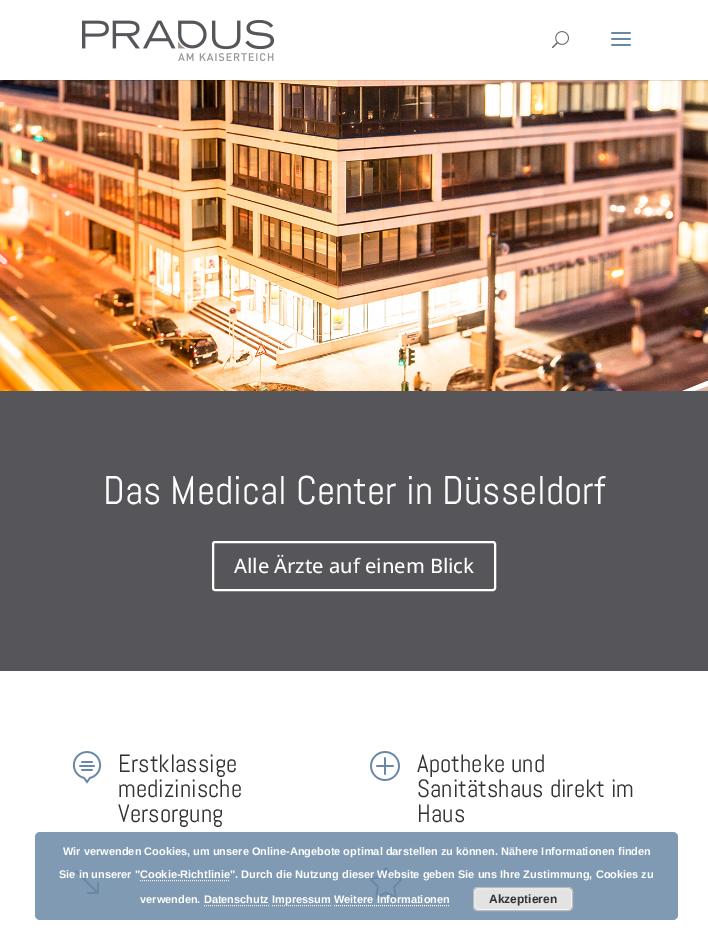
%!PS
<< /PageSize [708 950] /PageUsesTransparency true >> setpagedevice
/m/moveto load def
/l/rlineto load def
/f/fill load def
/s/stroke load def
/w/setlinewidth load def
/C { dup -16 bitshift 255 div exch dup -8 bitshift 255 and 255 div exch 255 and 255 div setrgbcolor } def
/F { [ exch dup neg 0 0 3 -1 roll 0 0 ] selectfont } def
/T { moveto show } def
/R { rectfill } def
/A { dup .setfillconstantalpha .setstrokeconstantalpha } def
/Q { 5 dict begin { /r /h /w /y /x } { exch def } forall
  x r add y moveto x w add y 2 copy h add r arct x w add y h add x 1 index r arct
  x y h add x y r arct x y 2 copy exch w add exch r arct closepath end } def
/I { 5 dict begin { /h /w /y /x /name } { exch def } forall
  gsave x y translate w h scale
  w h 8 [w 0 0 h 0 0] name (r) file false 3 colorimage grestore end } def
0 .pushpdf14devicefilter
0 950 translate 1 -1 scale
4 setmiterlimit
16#FFFFFF C
0 0 708 950 R
(4.rgb) 0 80 708 311 I
0.1 A
16#000000 C
0 80 708 1 R
1 A
(1.rgb) 82 20 192 41 I
(2.rgb) 552 31 17 18 I
(3.rgb) 611 32 20 14 I
16#56565A C
0 391 708 280 R
/Abel-Regular 40 F
16#FFFFFF C
(Das Medical Center in Düsseldorf) 103 504 T
2 w
213 542 282 48 2 Q s
/OpenSans-Medium 20 F
(Alle Ärzte auf einem Blick) 234 573 T
(5.rgb) 72 751 30 33 I
/Abel-Regular 25 F
16#333333 C
(Erstklassige) 118 772 T
(medizinische) 118 797 T
(Versorgung) 118 822 T
(6.rgb) 370 751 30 30 I
(Apotheke und) 417 772 T
(Sanitätshaus direkt im) 417 797 T
(Haus) 417 822 T
(7.rgb) 75 870 24 24 I
(8.rgb) 370 867 32 31 I
0.85 A
16#6988A5 C
35 832 643 88 5 Q f
/LiberationSans-Bold 11 F
1 A
16#FFFFFF C
(Wir verwenden Cookies, um unsere Online-Angebote optimal darstellen zu können. Nähere Informationen finden) 63 855 T
(Sie in unserer "Cookie-Richtlinie". Durch die Nutzung dieser Website geben Sie uns Ihre Zustimmung, Cookies zu) 59 878 T
16#EEEEEE C
1 w
[1 1] 0 setdash
140 880.5 m 90 0 l s
16#FFFFFF C
(verwenden. Datenschutz) 140 903 T
16#EEEEEE C
272 905.5 m 59 0 l s
16#FFFFFF C
(Impressum Weitere Informationen) 272 903 T
16#E3E3E3 C
473 887 100 24 5 Q f
16#F6F6F6 C
[] 0 setdash
474.5 888.5 97 21 3.5 Q s
16#BBBBBB C
473.5 887.5 99 23 4.5 Q s
/LiberationSans-Bold 12 F
16#333333 C
(Akzeptieren) 489 903 T
16#EEEEEE C
[1 1] 0 setdash
204 905.5 m 65 0 l s
16#FFFFFF C
334 905.5 m 116 0 l s
.poppdf14devicefilter showpage
